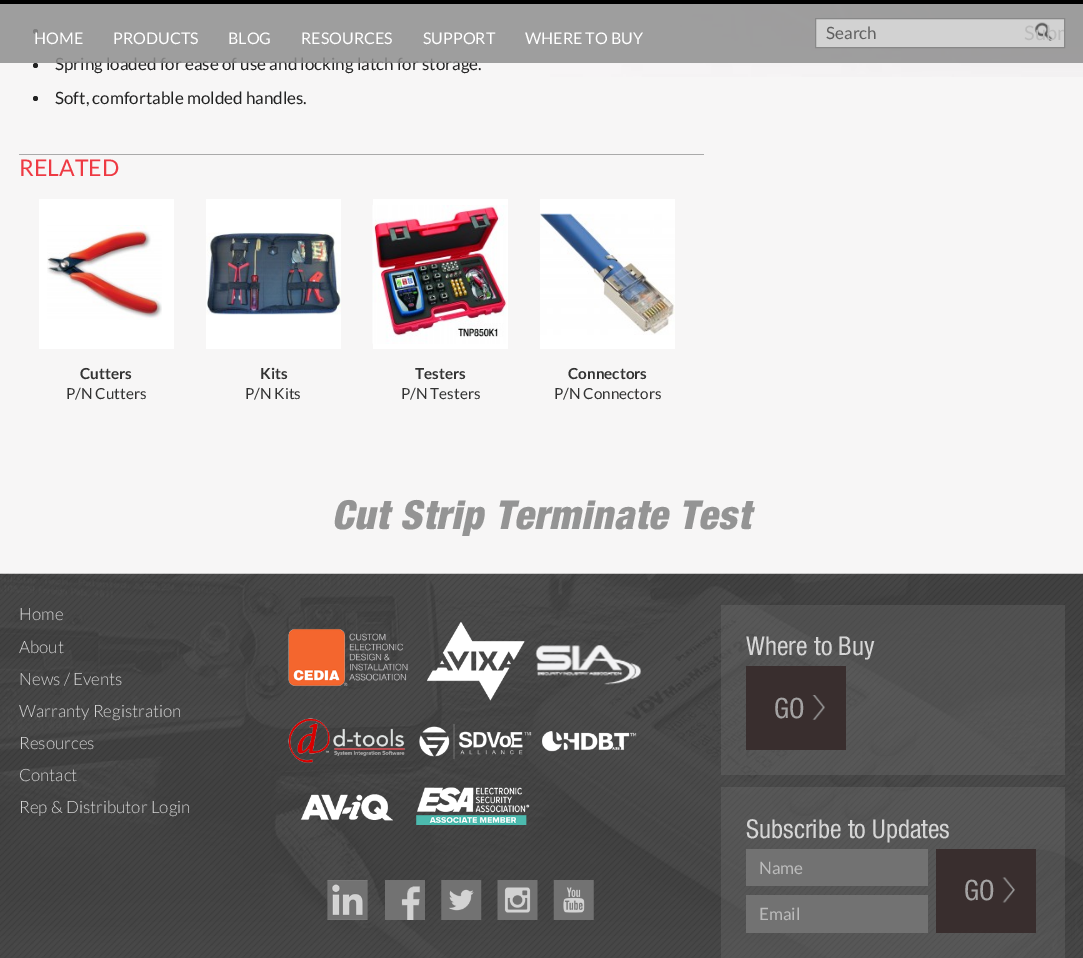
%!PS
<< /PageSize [1083 958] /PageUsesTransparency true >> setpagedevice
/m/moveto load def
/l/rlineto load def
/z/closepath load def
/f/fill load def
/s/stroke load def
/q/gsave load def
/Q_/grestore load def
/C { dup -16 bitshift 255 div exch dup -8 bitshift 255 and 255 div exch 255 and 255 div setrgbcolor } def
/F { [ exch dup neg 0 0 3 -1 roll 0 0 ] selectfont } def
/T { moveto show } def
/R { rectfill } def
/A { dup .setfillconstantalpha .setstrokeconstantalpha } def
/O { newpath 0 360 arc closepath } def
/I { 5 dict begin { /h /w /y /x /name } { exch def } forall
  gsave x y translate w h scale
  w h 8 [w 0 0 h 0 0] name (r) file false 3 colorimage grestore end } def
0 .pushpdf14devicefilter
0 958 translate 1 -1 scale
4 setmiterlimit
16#F7F6F6 C
0 0 1083 958 R
(1.rgb) 550 4 533 73 I
16#222222 C
35.5 31.5 2.5 O f
/Lato-Regular 17 F
(Spring loaded for ease of use and locking latch for storage.) 55 70 T
0.85 A
16#8F8F8F C
0 4 1083 59 R
1 A
16#000000 C
0 0 1083 4 R
/Lato-Regular 16 F
16#FFFFFF C
(HOME) 34 44 T
(PRODUCTS) 113 44 T
(BLOG) 228 44 T
(RESOURCES) 301 44 T
(SUPPORT) 423 44 T
(WHERE TO BUY) 525 44 T
16#D2D2D2 C
815.5 18.5 m 249 0 l 0 29 l -249 0 l z q f Q_
16#888888 C
s
(2.rgb) 1034 22 19 19 I
/Lato-Regular 17 F
16#606060 C
(Search) 826 39 T
q
1024 19 40 27 rectclip
/Lato-Regular 20 F
16#BBBBBB C
(Subm) 1024 40 T
Q_
16#222222 C
35.5 65.5 2.5 O f
35.5 98.5 2.5 O f
(Soft, comfortable molded handles.) 55 104 T
16#AAAAAA C
19 154 685 1 R
/Lato-Regular 23 F
16#EE3A43 C
(RELATED) 19 176 T
16#FFFFFF C
39 199 135 150 R
(3.rgb) 47 225 115 95 I
/Lato-Bold 15.25 F
16#333333 C
(Cutters) 80 379 T
/Lato-Regular 15.25 F
(P/N Cutters) 66 399 T
16#FFFFFF C
206 199 135 150 R
(4.rgb) 206 232 135 83 I
/Lato-Bold 15.25 F
16#333333 C
(Kits) 260 379 T
/Lato-Regular 15.25 F
(P/N Kits) 245 399 T
16#FFFFFF C
373 199 135 150 R
(5.rgb) 372 205 136 139 I
/Lato-Bold 15.25 F
16#333333 C
(Testers) 415 379 T
/Lato-Regular 15.25 F
(P/N Testers) 401 399 T
16#FFFFFF C
540 199 135 150 R
(6.rgb) 540 213 135 122 I
/Lato-Bold 15.25 F
16#333333 C
(Connectors) 568 379 T
/Lato-Regular 15.25 F
(P/N Connectors) 554 399 T
/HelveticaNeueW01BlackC-Black 40 F
16#949494 C
332 529 m .8 0 (Cut Strip Terminate Test) ashow
(7.rgb) 0 573 1083 385 I
(8.rgb) 0 573 1083 385 I
/Lato-Light 17 F
16#D5D5D5 C
(Home) 19 620 T
(About) 19 653 T
(News / Events) 19 685 T
(Warranty Registration) 19 717 T
(Resources) 19 749 T
(Contact) 19 781 T
(Rep & Distributor Login) 19 813 T
(9.rgb) 288 622 354 203 I
(10.rgb) 327 880 41 40 I
(11.rgb) 385 880 40 40 I
(12.rgb) 441 880 41 40 I
(13.rgb) 497 880 41 40 I
(14.rgb) 553 880 41 40 I
0.3 A
16#747474 C
721 605 344 170 R
/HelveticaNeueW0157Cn-Regular 26 F
1 A
16#D5D5D5 C
(Where to Buy) 746 655 T
16#392E2E C
746 666 100 84 R
(15.rgb) 812 695 13 25 I
/HelveticaNeueW0157Cn-Regular 28 F
16#A4A3A3 C
(GO) 774 718 T
0.3 A
16#747474 C
721 787 344 171 R
/HelveticaNeueW0157Cn-Regular 26 F
1 A
16#D5D5D5 C
(Subscribe to Updates) 746 838 T
16#727272 C
746 849 182 37 R
/Lato-Regular 17 F
16#BBBBBB C
(Name) 759 874 T
16#727272 C
746 895 182 38 R
16#BBBBBB C
(Email) 759 920 T
16#392E2E C
936 849 100 84 R
(16.rgb) 1002 877 13 26 I
/HelveticaNeueW0157Cn-Regular 28 F
16#A4A3A3 C
(GO) 964 900 T
.poppdf14devicefilter showpage
